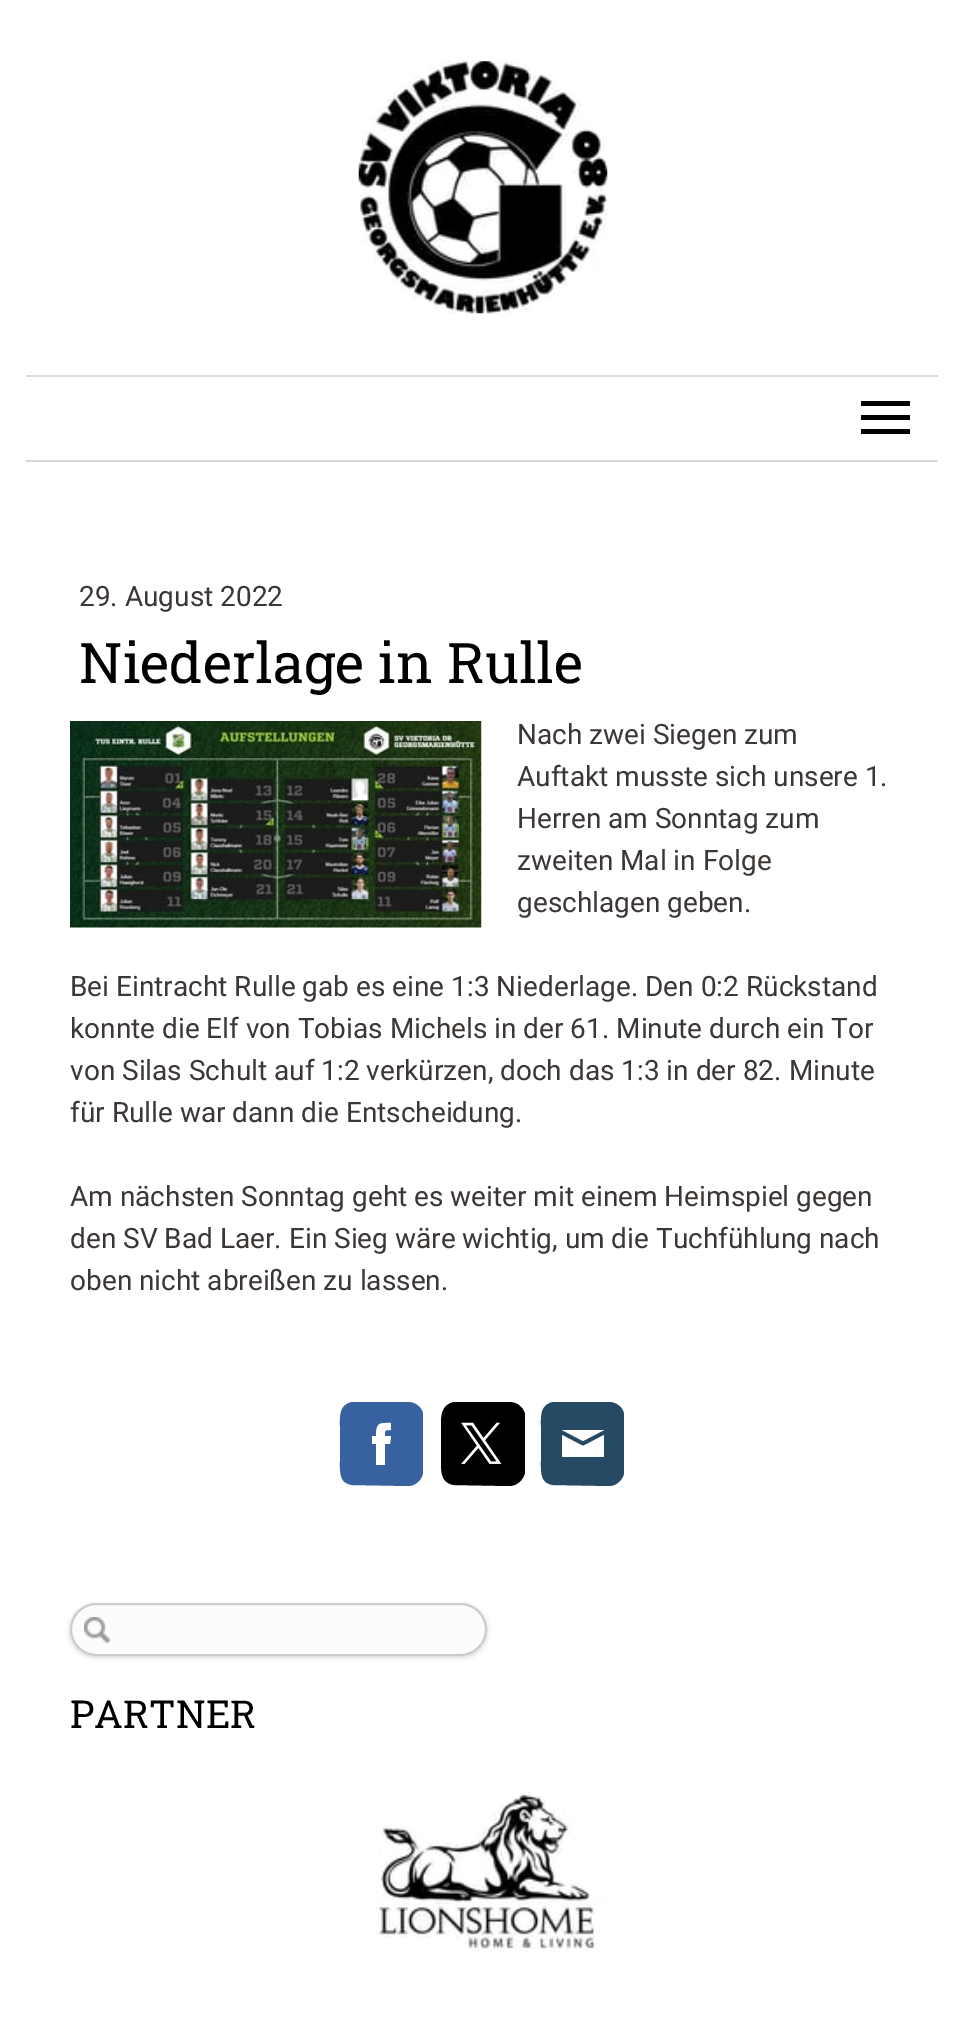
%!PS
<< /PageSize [964 2017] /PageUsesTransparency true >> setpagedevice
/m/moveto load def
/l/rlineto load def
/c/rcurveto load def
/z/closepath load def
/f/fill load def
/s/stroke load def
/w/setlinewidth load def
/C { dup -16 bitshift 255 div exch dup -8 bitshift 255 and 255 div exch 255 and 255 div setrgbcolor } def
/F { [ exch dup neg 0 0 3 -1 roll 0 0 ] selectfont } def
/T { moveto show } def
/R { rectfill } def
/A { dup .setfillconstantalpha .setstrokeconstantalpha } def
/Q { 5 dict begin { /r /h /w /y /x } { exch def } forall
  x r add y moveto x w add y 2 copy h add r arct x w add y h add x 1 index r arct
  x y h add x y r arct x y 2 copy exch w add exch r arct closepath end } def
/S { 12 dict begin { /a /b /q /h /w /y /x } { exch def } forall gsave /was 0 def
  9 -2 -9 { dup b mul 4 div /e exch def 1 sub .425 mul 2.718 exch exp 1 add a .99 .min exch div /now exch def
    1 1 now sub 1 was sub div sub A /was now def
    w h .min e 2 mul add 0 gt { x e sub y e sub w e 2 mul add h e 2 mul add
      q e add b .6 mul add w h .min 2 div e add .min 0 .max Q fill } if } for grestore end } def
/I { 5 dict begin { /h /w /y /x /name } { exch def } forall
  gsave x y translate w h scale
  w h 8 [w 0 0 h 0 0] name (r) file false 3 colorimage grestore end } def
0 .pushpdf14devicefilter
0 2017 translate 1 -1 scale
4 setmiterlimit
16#FFFFFF C
0 0 964 2017 R
(1.rgb) 358 61 250 253 I
16#D9D9D9 C
26 375 912 2 R
26 460 912 2 R
16#000000 C
861 415 49 5 R
861 401 49 5 R
861 429 49 5 R
/Roboto-Regular 28 F
16#3C3734 C
(29. August 2022) 79 606 T
/RobotoSlab-Regular 56 F
16#000000 C
(Niederlage in Rulle) 79 683 T
(2.rgb) 70 721 412 207 I
/Roboto-Regular 28 F
16#3C3734 C
(Nach zwei Siegen zum) 517 744 T
(Auftakt musste sich unsere 1.) 517 786 T
(Herren am Sonntag zum) 517 828 T
(zweiten Mal in Folge) 517 870 T
(geschlagen geben.) 517 912 T
(Bei Eintracht Rulle gab es eine 1:3 Niederlage. Den 0:2 Rückstand) 70 996 T
(konnte die Elf von Tobias Michels in der 61. Minute durch ein Tor) 70 1038 T
(von Silas Schult auf 1:2 verkürzen, doch das 1:3 in der 82. Minute) 70 1080 T
(für Rulle war dann die Entscheidung.) 70 1122 T
(Am nächsten Sonntag geht es weiter mit einem Heimspiel gegen) 70 1206 T
(den SV Bad Laer. Ein Sieg wäre wichtig, um die Tuchfühlung nach) 70 1248 T
(oben nicht abreißen zu lassen.) 70 1290 T
16#38619F C
408 1486 m -56 -1 l -13 -2 -12 -13 -12 -24 c 0 -35 l 0 -10 -1 -21 12 -24 c 56 0 l 7 0 14 5 15 12 c 0 59 l -1 7 -8 13 -15 13 c z f
16#FFFFFF C
391 1423 m -11 0 -15 -1 -15 13 c -4 0 l 0 8 l 4 0 l 0 21 l 9 0 l 0 -21 l 5 0 l 1 -8 l -6 0 l 0 -6 -1 -6 6 -6 c z f
16#000000 C
509 1486 m -55 -1 l -13 -2 -13 -13 -13 -24 c 0 -35 l 0 -10 0 -21 13 -24 c 55 0 l 8 0 14 5 16 12 c 0 59 l -2 7 -8 13 -16 13 c z f
(3.rgb) 461 1422 41 42 I
16#264A64 C
609 1486 m -56 -1 l -13 -2 -12 -13 -12 -24 c 0 -35 l 0 -10 -1 -21 12 -24 c 56 0 l 7 0 14 5 15 12 c 0 59 l -1 7 -8 13 -15 13 c z f
16#FFFFFF C
604 1457 m -42 0 l 0 -22 l 21 11 l 21 -11 l z 604 1430 m -42 0 l 21 11 l z f
16#000000 C
70 1605 417 52 26 2.5 .17 S
16#FCFCFC C
70 1603 417 53 26.5 Q f
(4.rgb) 84 1617 27 27 I
16#CCCCCC C
2 w
71 1604 415 51 25.5 Q s
/RobotoSlab-Regular 38.5 F
16#000000 C
(PARTNER) 70 1728 T
(5.rgb) 376 1792 228 160 I
.poppdf14devicefilter showpage
